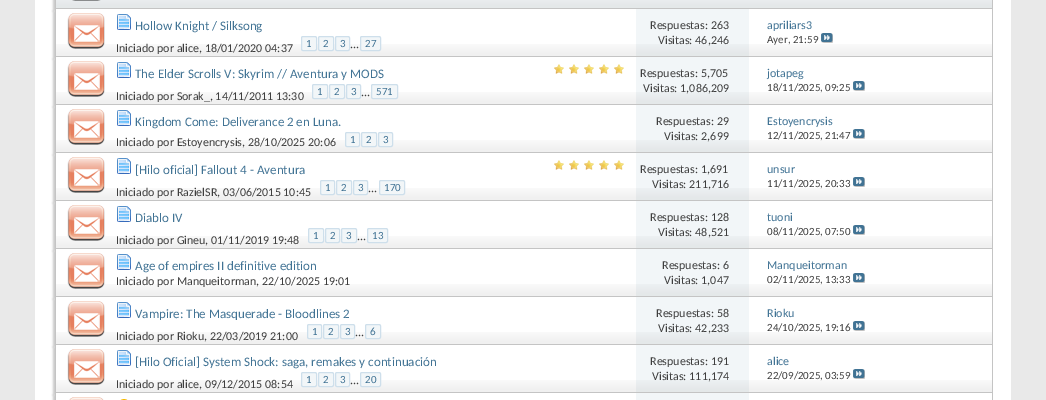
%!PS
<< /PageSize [1046 400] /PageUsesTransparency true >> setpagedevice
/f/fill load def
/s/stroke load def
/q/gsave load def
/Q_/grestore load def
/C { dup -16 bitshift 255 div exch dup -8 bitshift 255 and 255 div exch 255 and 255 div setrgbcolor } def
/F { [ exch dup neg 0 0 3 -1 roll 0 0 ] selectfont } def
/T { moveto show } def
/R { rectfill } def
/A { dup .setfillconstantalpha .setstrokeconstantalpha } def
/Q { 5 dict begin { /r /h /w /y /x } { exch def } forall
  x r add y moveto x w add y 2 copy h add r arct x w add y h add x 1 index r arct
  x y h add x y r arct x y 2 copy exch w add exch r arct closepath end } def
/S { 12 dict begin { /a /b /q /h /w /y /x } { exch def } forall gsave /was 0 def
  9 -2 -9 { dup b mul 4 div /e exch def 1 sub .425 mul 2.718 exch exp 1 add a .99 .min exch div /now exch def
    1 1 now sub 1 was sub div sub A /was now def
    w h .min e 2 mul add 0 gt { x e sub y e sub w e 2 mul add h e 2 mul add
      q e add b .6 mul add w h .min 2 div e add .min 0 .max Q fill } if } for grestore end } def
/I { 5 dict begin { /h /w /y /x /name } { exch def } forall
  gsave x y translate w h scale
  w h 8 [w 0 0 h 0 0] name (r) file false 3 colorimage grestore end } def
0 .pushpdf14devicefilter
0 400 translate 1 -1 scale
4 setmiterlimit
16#E9E9E9 C
0 0 1046 400 R
16#FFFFFF C
35 0 976 400 R
16#C8C8C8 C
53 -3 936 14 0 1 1 S
16#F2F6F8 C
56 0 936 8 R
(1.rgb) 56 0 936 8 I
16#C4C4C4 C
992 0 1 9 R
55 8 938 1 R
55 0 1 9 R
(2.rgb) 72 0 29 1 I
16#F2F6F8 C
636 0 113 8 R
(3.rgb) 636 0 113 8 I
16#C8C8C8 C
53 11 936 48 0 1 1 S
16#FFFFFF C
56 9 935 47 R
(4.rgb) 56 44 936 12 I
16#C4C4C4 C
992 9 1 48 R
55 56 938 1 R
55 9 1 48 R
(5.rgb) 67 13 38 36 I
(6.rgb) 117 14 14 16 I
/Carlito-Regular 13 F
16#417394 C
(Hollow Knight / Silksong) 135 30 T
/Carlito-Regular 12 F
16#3E3E3E C
(Iniciado por alice, 18/01/2020 04:37) 116 52 T
16#F2F6F8 C
301.5 36.5 15 14 1.5 Q q f Q_
16#CEDFEB C
s
/Carlito-Regular 11 F
16#417394 C
(1) 306 47 T
16#F2F6F8 C
318.5 36.5 15 14 1.5 Q q f Q_
16#CEDFEB C
s
16#417394 C
(2) 323 47 T
16#F2F6F8 C
335.5 36.5 14 14 1.5 Q q f Q_
16#CEDFEB C
s
16#417394 C
(3) 340 47 T
16#F2F6F8 C
360.5 36.5 20 14 1.5 Q q f Q_
16#CEDFEB C
s
16#417394 C
(27) 365 47 T
/Carlito-Regular 12 F
16#3E3E3E C
(...) 350 48 T
16#F2F6F8 C
636 9 113 47 R
(7.rgb) 636 44 113 12 I
16#3E3E3E C
(Respuestas: 263) 650 29 T
(Visitas: 46,246) 658 44 T
16#417394 C
(apriliars3) 767 29 T
/Carlito-Regular 11 F
16#3E3E3E C
(Ayer, 21:59) 767 43 T
(8.rgb) 821 33 12 10 I
16#C8C8C8 C
53 59 936 48 0 1 1 S
16#FFFFFF C
56 57 935 47 R
(4.rgb) 56 92 936 12 I
16#C4C4C4 C
992 57 1 48 R
55 104 938 1 R
55 57 1 48 R
(5.rgb) 67 61 38 36 I
(9.rgb) 554 64 70 10 I
(6.rgb) 117 62 14 16 I
/Carlito-Regular 13 F
16#417394 C
(The Elder Scrolls V: Skyrim // Aventura y MODS) 135 78 T
/Carlito-Regular 12 F
16#3E3E3E C
(Iniciado por Sorak_, 14/11/2011 13:30) 116 100 T
16#F2F6F8 C
312.5 84.5 15 14 1.5 Q q f Q_
16#CEDFEB C
s
/Carlito-Regular 11 F
16#417394 C
(1) 317 95 T
16#F2F6F8 C
329.5 84.5 15 14 1.5 Q q f Q_
16#CEDFEB C
s
16#417394 C
(2) 334 95 T
16#F2F6F8 C
346.5 84.5 14 14 1.5 Q q f Q_
16#CEDFEB C
s
16#417394 C
(3) 351 95 T
/Carlito-Regular 12 F
16#3E3E3E C
(...) 361 96 T
16#F2F6F8 C
371.5 84.5 26 14 1.5 Q q f Q_
16#CEDFEB C
s
/Carlito-Regular 11 F
16#417394 C
(571) 376 95 T
16#F2F6F8 C
636 57 113 47 R
(7.rgb) 636 92 113 12 I
/Carlito-Regular 12 F
16#3E3E3E C
(Respuestas: 5,705) 640 77 T
(Visitas: 1,086,209) 643 92 T
16#417394 C
(jotapeg) 767 77 T
/Carlito-Regular 11 F
16#3E3E3E C
(18/11/2025, 09:25) 767 91 T
(8.rgb) 853 81 12 10 I
16#C8C8C8 C
53 107 936 48 0 1 1 S
16#FFFFFF C
56 105 935 47 R
(4.rgb) 56 140 936 12 I
16#C4C4C4 C
992 105 1 48 R
55 152 938 1 R
55 105 1 48 R
(5.rgb) 67 109 38 36 I
(6.rgb) 117 110 14 16 I
/Carlito-Regular 13 F
16#417394 C
(Kingdom Come: Deliverance 2 en Luna.) 135 126 T
/Carlito-Regular 12 F
16#3E3E3E C
(Iniciado por Estoyencrysis, 28/10/2025 20:06) 116 146 T
16#F2F6F8 C
345.5 132.5 14 14 1.5 Q q f Q_
16#CEDFEB C
s
/Carlito-Regular 11 F
16#417394 C
(1) 350 143 T
16#F2F6F8 C
361.5 132.5 15 14 1.5 Q q f Q_
16#CEDFEB C
s
16#417394 C
(2) 366 143 T
16#F2F6F8 C
378.5 132.5 14 14 1.5 Q q f Q_
16#CEDFEB C
s
16#417394 C
(3) 383 143 T
16#F2F6F8 C
636 105 113 47 R
(7.rgb) 636 140 113 12 I
/Carlito-Regular 12 F
16#3E3E3E C
(Respuestas: 29) 656 125 T
(Visitas: 2,699) 664 140 T
16#417394 C
(Estoyencrysis) 767 125 T
/Carlito-Regular 11 F
16#3E3E3E C
(12/11/2025, 21:47) 767 139 T
(8.rgb) 853 129 12 10 I
16#C8C8C8 C
53 155 936 48 0 1 1 S
16#FFFFFF C
56 153 935 47 R
(4.rgb) 56 188 936 12 I
16#C4C4C4 C
992 153 1 48 R
55 200 938 1 R
55 153 1 48 R
(5.rgb) 67 157 38 36 I
(9.rgb) 554 160 70 10 I
(6.rgb) 117 158 14 16 I
/Carlito-Regular 13 F
16#417394 C
([Hilo oficial] Fallout 4 - Aventura) 135 174 T
/Carlito-Regular 12 F
16#3E3E3E C
(Iniciado por RazielSR, 03/06/2015 10:45) 116 196 T
16#F2F6F8 C
320.5 180.5 14 14 1.5 Q q f Q_
16#CEDFEB C
s
/Carlito-Regular 11 F
16#417394 C
(1) 325 191 T
16#F2F6F8 C
336.5 180.5 15 14 1.5 Q q f Q_
16#CEDFEB C
s
16#417394 C
(2) 341 191 T
16#F2F6F8 C
353.5 180.5 14 14 1.5 Q q f Q_
16#CEDFEB C
s
16#417394 C
(3) 358 191 T
/Carlito-Regular 12 F
16#3E3E3E C
(...) 368 192 T
16#F2F6F8 C
379.5 180.5 25 14 1.5 Q q f Q_
16#CEDFEB C
s
/Carlito-Regular 11 F
16#417394 C
(170) 384 191 T
16#F2F6F8 C
636 153 113 47 R
(7.rgb) 636 188 113 12 I
/Carlito-Regular 12 F
16#3E3E3E C
(Respuestas: 1,691) 640 173 T
(Visitas: 211,716) 652 188 T
16#417394 C
(unsur) 767 173 T
/Carlito-Regular 11 F
16#3E3E3E C
(11/11/2025, 20:33) 767 187 T
(8.rgb) 853 177 12 10 I
16#C8C8C8 C
53 203 936 48 0 1 1 S
16#FFFFFF C
56 201 935 47 R
(4.rgb) 56 236 936 12 I
16#C4C4C4 C
992 201 1 48 R
55 248 938 1 R
55 201 1 48 R
(5.rgb) 67 205 38 36 I
(6.rgb) 117 206 14 16 I
/Carlito-Regular 13 F
16#417394 C
(Diablo IV) 135 222 T
/Carlito-Regular 12 F
16#3E3E3E C
(Iniciado por Gineu, 01/11/2019 19:48) 116 244 T
16#F2F6F8 C
308.5 228.5 15 14 1.5 Q q f Q_
16#CEDFEB C
s
/Carlito-Regular 11 F
16#417394 C
(1) 313 239 T
16#F2F6F8 C
325.5 228.5 14 14 1.5 Q q f Q_
16#CEDFEB C
s
16#417394 C
(2) 330 239 T
16#F2F6F8 C
341.5 228.5 15 14 1.5 Q q f Q_
16#CEDFEB C
s
16#417394 C
(3) 346 239 T
/Carlito-Regular 12 F
16#3E3E3E C
(...) 357 240 T
16#F2F6F8 C
367.5 228.5 20 14 1.5 Q q f Q_
16#CEDFEB C
s
/Carlito-Regular 11 F
16#417394 C
(13) 372 239 T
16#F2F6F8 C
636 201 113 47 R
(7.rgb) 636 236 113 12 I
/Carlito-Regular 12 F
16#3E3E3E C
(Respuestas: 128) 650 221 T
(Visitas: 48,521) 658 236 T
16#417394 C
(tuoni) 767 221 T
/Carlito-Regular 11 F
16#3E3E3E C
(08/11/2025, 07:50) 767 235 T
(8.rgb) 853 225 12 10 I
16#C8C8C8 C
53 251 936 48 0 1 1 S
16#FFFFFF C
56 249 935 47 R
(4.rgb) 56 284 936 12 I
16#C4C4C4 C
992 249 1 48 R
55 296 938 1 R
55 249 1 48 R
(5.rgb) 67 253 38 36 I
(6.rgb) 117 254 14 16 I
/Carlito-Regular 13 F
16#417394 C
(Age of empires II definitive edition) 135 270 T
/Carlito-Regular 12 F
16#3E3E3E C
(Iniciado por Manqueitorman, 22/10/2025 19:01) 116 285 T
16#F2F6F8 C
636 249 113 47 R
(7.rgb) 636 284 113 12 I
16#3E3E3E C
(Respuestas: 6) 662 269 T
(Visitas: 1,047) 664 284 T
16#417394 C
(Manqueitorman) 767 269 T
/Carlito-Regular 11 F
16#3E3E3E C
(02/11/2025, 13:33) 767 283 T
(8.rgb) 853 273 12 10 I
16#C8C8C8 C
53 299 936 48 0 1 1 S
16#FFFFFF C
56 297 935 47 R
(4.rgb) 56 332 936 12 I
16#C4C4C4 C
992 297 1 48 R
55 344 938 1 R
55 297 1 48 R
(5.rgb) 67 301 38 36 I
(6.rgb) 117 302 14 16 I
/Carlito-Regular 13 F
16#417394 C
(Vampire: The Masquerade - Bloodlines 2) 135 318 T
/Carlito-Regular 12 F
16#3E3E3E C
(Iniciado por Rioku, 22/03/2019 21:00) 116 340 T
16#F2F6F8 C
307.5 324.5 14 14 1.5 Q q f Q_
16#CEDFEB C
s
/Carlito-Regular 11 F
16#417394 C
(1) 312 335 T
16#F2F6F8 C
323.5 324.5 15 14 1.5 Q q f Q_
16#CEDFEB C
s
16#417394 C
(2) 328 335 T
16#F2F6F8 C
340.5 324.5 14 14 1.5 Q q f Q_
16#CEDFEB C
s
16#417394 C
(3) 345 335 T
/Carlito-Regular 12 F
16#3E3E3E C
(...) 355 336 T
16#F2F6F8 C
365.5 324.5 15 14 1.5 Q q f Q_
16#CEDFEB C
s
/Carlito-Regular 11 F
16#417394 C
(6) 370 335 T
16#F2F6F8 C
636 297 113 47 R
(7.rgb) 636 332 113 12 I
/Carlito-Regular 12 F
16#3E3E3E C
(Respuestas: 58) 656 317 T
(Visitas: 42,233) 658 332 T
16#417394 C
(Rioku) 767 317 T
/Carlito-Regular 11 F
16#3E3E3E C
(24/10/2025, 19:16) 767 331 T
(8.rgb) 853 321 12 10 I
16#C8C8C8 C
53 347 936 48 0 1 1 S
16#FFFFFF C
56 345 935 47 R
(4.rgb) 56 380 936 12 I
16#C4C4C4 C
992 345 1 48 R
55 392 938 1 R
55 345 1 48 R
(5.rgb) 67 349 38 36 I
(6.rgb) 117 350 14 16 I
/Carlito-Regular 13 F
16#417394 C
([Hilo Oficial] System Shock: saga, remakes y continuación) 135 366 T
/Carlito-Regular 12 F
16#3E3E3E C
(Iniciado por alice, 09/12/2015 08:54) 116 388 T
16#F2F6F8 C
301.5 372.5 15 14 1.5 Q q f Q_
16#CEDFEB C
s
/Carlito-Regular 11 F
16#417394 C
(1) 306 383 T
16#F2F6F8 C
318.5 372.5 15 14 1.5 Q q f Q_
16#CEDFEB C
s
16#417394 C
(2) 323 383 T
16#F2F6F8 C
335.5 372.5 14 14 1.5 Q q f Q_
16#CEDFEB C
s
16#417394 C
(3) 340 383 T
/Carlito-Regular 12 F
16#3E3E3E C
(...) 350 384 T
16#F2F6F8 C
360.5 372.5 20 14 1.5 Q q f Q_
16#CEDFEB C
s
/Carlito-Regular 11 F
16#417394 C
(20) 365 383 T
16#F2F6F8 C
636 345 113 47 R
(7.rgb) 636 380 113 12 I
/Carlito-Regular 12 F
16#3E3E3E C
(Respuestas: 191) 650 365 T
(Visitas: 111,174) 652 380 T
16#417394 C
(alice) 767 365 T
/Carlito-Regular 11 F
16#3E3E3E C
(22/09/2025, 03:59) 767 379 T
(8.rgb) 853 369 12 10 I
16#C8C8C8 C
53 395 936 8 0 1 1 S
16#FFFFFF C
55 393 938 7 R
16#C4C4C4 C
992 393 1 7 R
55 393 1 7 R
(10.rgb) 69 397 35 3 I
(11.rgb) 120 399 8 1 I
16#F2F6F8 C
636 393 113 7 R
.poppdf14devicefilter showpage
